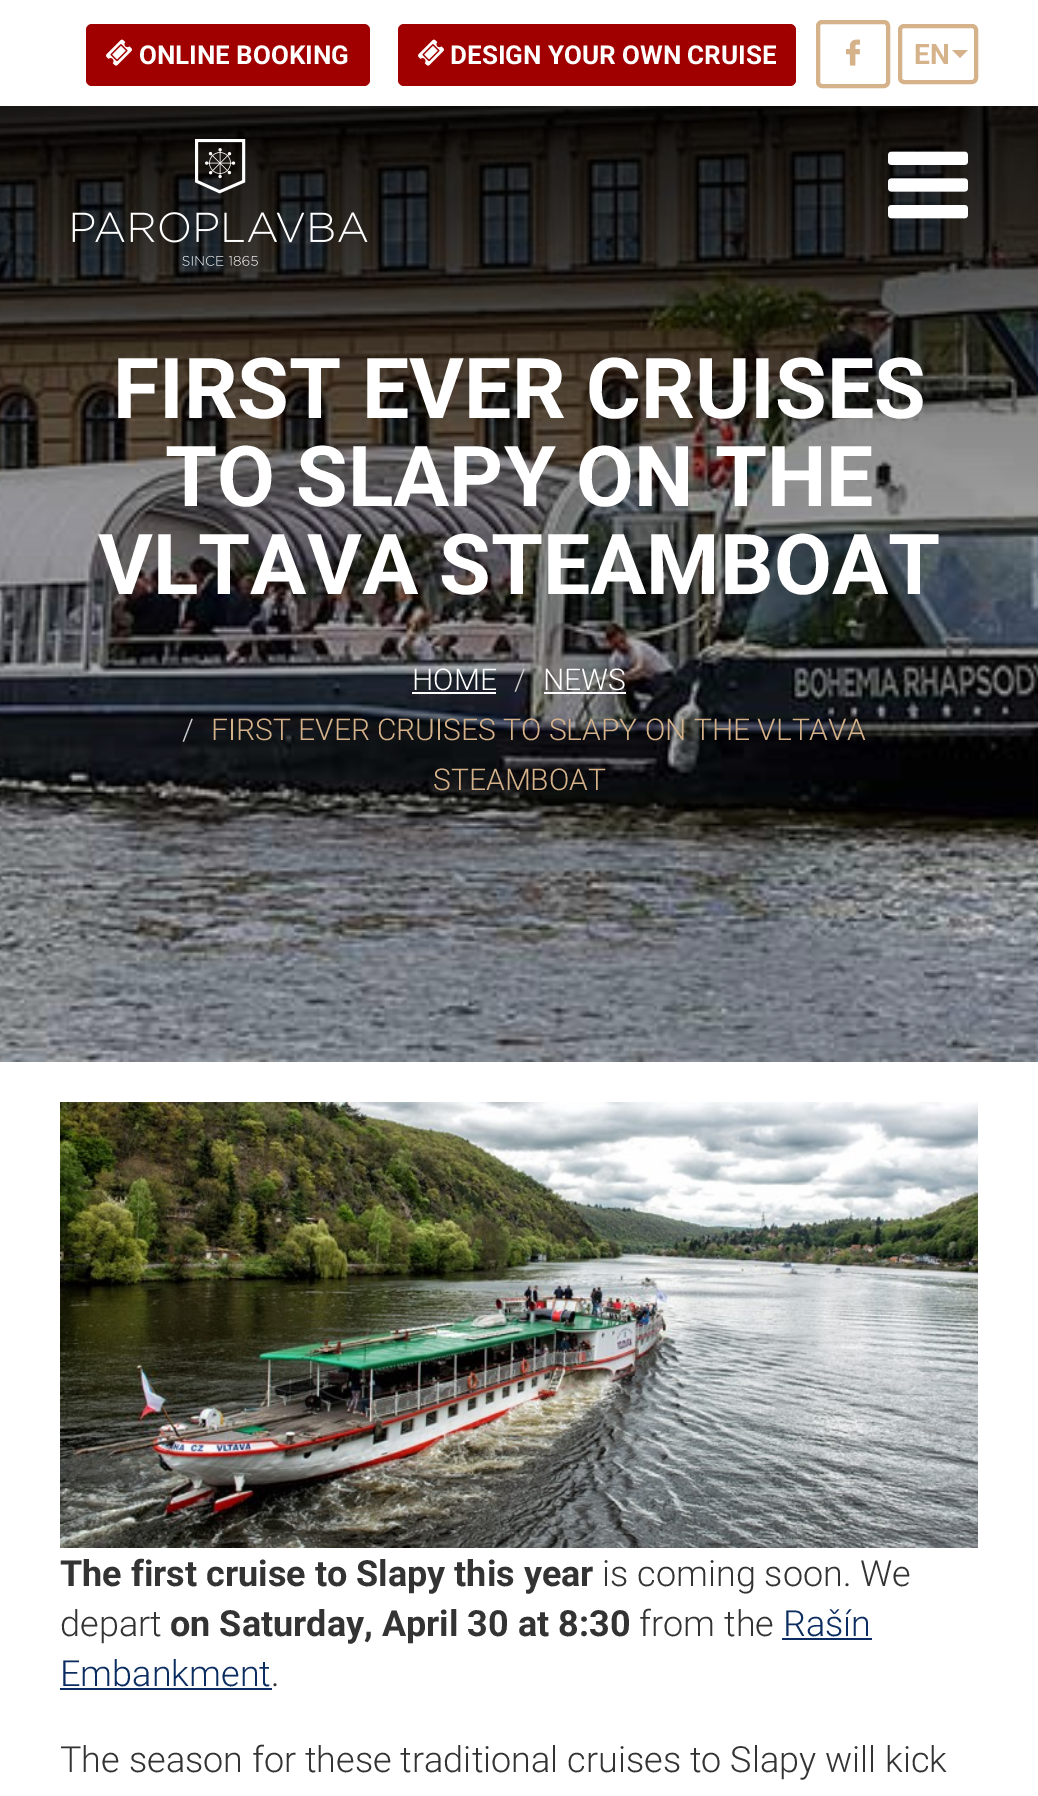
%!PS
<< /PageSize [1038 1796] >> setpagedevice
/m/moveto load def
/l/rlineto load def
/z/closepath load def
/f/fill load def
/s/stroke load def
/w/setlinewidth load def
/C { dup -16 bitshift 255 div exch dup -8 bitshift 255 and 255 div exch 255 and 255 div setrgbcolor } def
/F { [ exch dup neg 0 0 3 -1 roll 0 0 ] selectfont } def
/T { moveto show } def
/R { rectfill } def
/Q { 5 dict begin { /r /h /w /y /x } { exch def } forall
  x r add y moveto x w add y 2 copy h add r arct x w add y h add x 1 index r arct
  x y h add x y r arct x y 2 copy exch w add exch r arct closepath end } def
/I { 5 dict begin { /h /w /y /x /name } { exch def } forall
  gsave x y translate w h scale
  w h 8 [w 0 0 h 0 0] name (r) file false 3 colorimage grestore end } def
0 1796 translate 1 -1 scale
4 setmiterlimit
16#FFFFFF C
0 0 1038 1796 R
16#A10000 C
86 24 284 62 6 Q f
(1.rgb) 106 39 26 27 I
/Roboto-Bold 26 F
16#FFFFFF C
(ONLINE BOOKING) 139 64 T
16#A10000 C
398 24 398 62 6 Q f
(1.rgb) 418 39 26 27 I
16#FFFFFF C
(DESIGN YOUR OWN CRUISE) 450 64 T
16#D5B28A C
4 w
818 22 70 64 4 Q s
(2.rgb) 846 39 14 27 I
900 26 76 56 4 Q s
/Roboto-Bold 28 F
(EN) 914 64 T
952 50 m 16 0 l -8 8 l z f
(5.rgb) 0 106 1038 956 I
(3.rgb) 72 139 296 127 I
(4.rgb) 888 151 80 68 I
/Roboto-Bold 84 F
16#FFFFFF C
(FIRST EVER CRUISES) 113 418 T
(TO SLAPY ON THE) 165 506 T
(VLTAVA STEAMBOAT) 98 594 T
/Roboto-Light 30 F
(HOME) 412 690 T
412 692 84 2 R
16#CCCCCC C
(/) 514 690 T
16#FFFFFF C
(NEWS) 543 690 T
544 692 82 2 R
16#CCCCCC C
(/) 182 740 T
16#D5B28A C
(FIRST EVER CRUISES TO SLAPY ON THE VLTAVA) 211 740 T
(STEAMBOAT) 433 790 T
(6.rgb) 60 1102 918 446 I
/Roboto-Bold 36 F
16#333333 C
(The first cruise to Slapy this year) 60 1586 T
/Roboto-Light 36 F
(is coming soon. We) 602 1586 T
(depart) 60 1636 T
/Roboto-Bold 36 F
(on Saturday, April 30 at 8:30) 170 1636 T
/Roboto-Light 36 F
(from the) 639 1636 T
16#0B2C60 C
(Rašín) 783 1636 T
782 1638 90 2 R
(Embankment) 60 1686 T
60 1688 212 2 R
16#333333 C
(.) 271 1686 T
(The season for these traditional cruises to Slapy will kick) 60 1772 T
showpage
